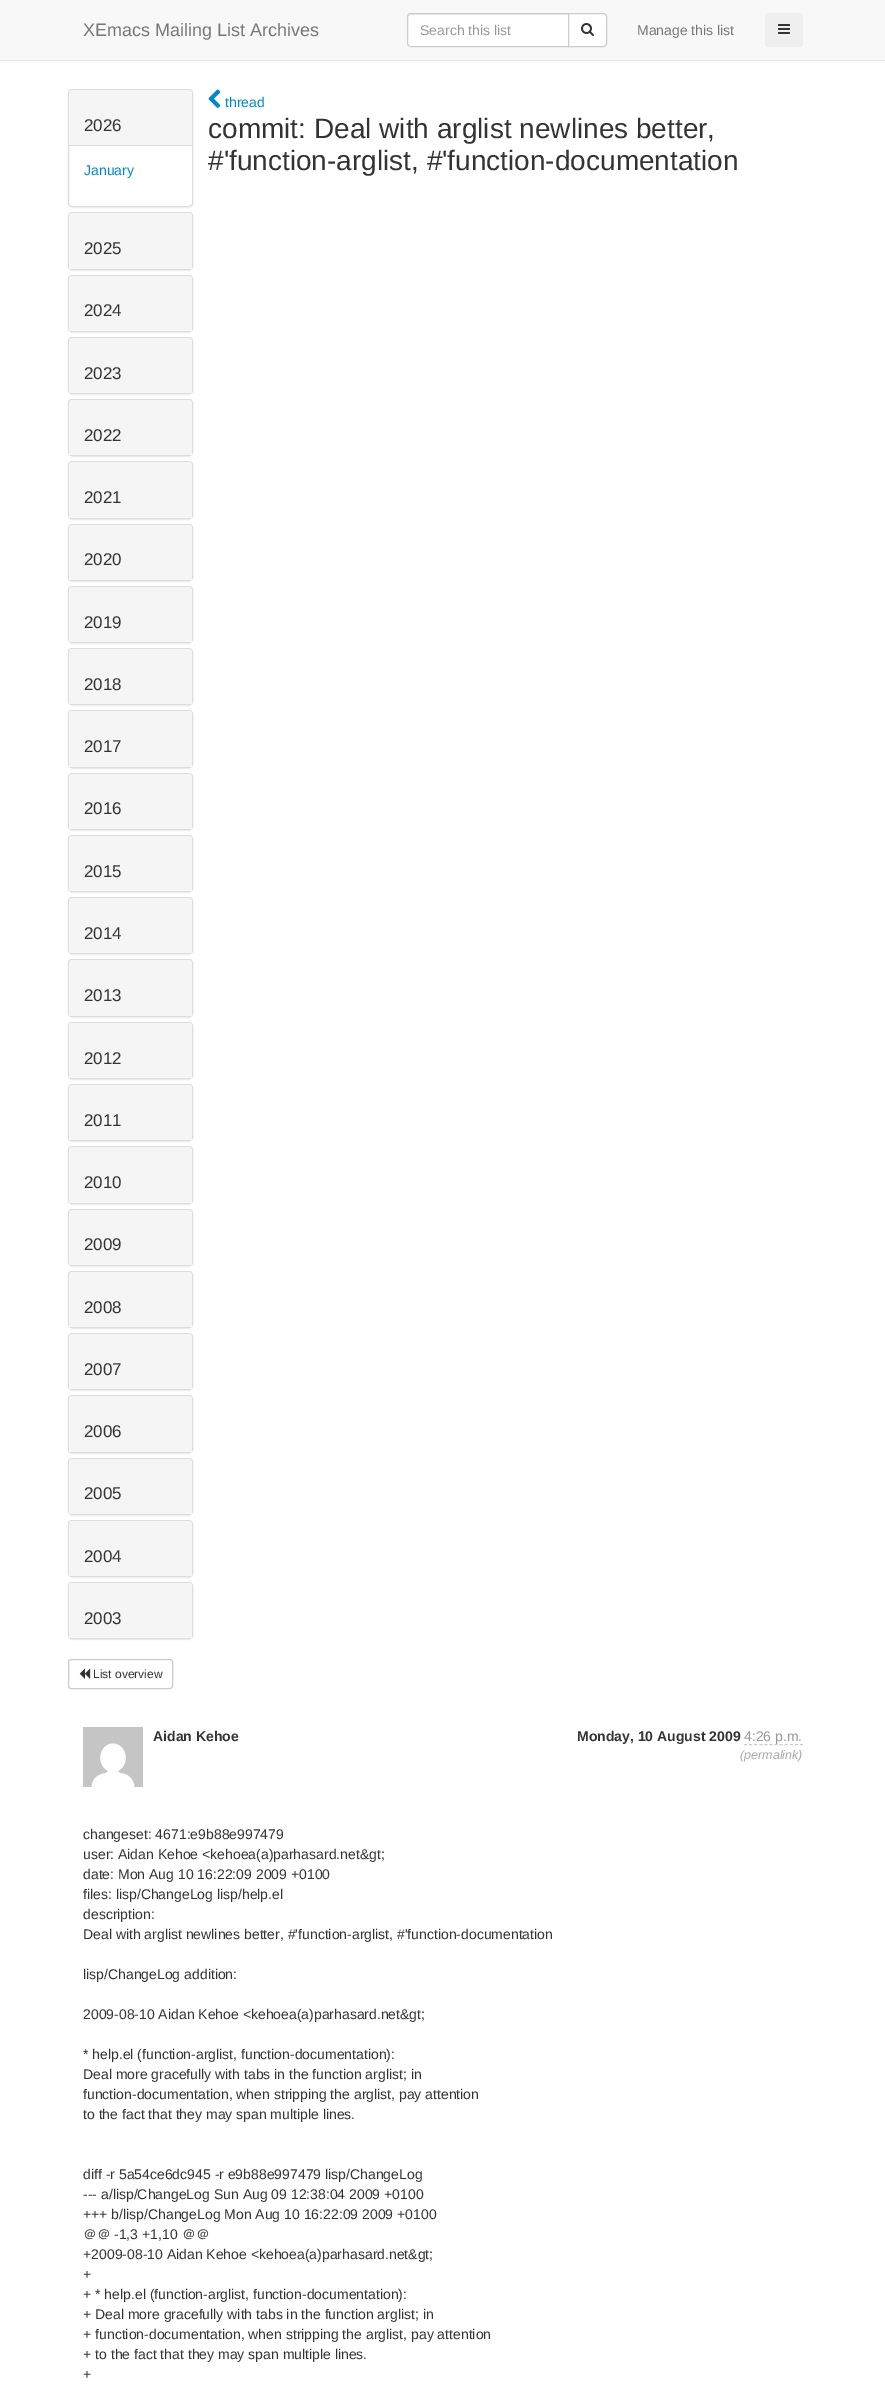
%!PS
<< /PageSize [885 2388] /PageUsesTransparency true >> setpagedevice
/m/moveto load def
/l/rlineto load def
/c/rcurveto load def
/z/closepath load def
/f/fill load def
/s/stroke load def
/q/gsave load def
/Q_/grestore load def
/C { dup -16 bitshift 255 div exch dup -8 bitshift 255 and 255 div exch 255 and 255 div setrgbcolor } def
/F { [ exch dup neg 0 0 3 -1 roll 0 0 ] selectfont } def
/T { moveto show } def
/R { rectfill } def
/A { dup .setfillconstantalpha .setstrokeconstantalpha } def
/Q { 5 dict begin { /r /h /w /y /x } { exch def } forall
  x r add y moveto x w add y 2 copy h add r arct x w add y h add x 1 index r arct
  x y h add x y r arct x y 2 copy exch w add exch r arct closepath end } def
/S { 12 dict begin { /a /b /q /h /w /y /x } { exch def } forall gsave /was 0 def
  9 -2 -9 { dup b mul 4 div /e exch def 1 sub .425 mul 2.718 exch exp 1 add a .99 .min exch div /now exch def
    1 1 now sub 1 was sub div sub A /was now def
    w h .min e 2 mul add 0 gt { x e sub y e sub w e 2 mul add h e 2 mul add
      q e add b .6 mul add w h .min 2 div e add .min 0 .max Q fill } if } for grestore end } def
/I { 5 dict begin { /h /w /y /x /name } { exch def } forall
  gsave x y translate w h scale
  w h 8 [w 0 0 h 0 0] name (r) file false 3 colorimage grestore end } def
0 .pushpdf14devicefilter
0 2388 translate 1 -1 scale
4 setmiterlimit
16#FFFFFF C
0 0 885 2388 R
16#F8F8F8 C
0 0 885 60 R
16#E7E7E7 C
0 60 885 1 R
/LiberationSans-Regular 18 F
16#777777 C
(XEmacs Mailing List Archives) 83 36 T
16#FFFFFF C
411 13 m 158 0 l 0 34 l -158 0 l -2 0 -4 -2 -4 -4 c 0 -26 l 0 -2 2 -4 4 -4 c z f
16#ECECEC C
411 15 m 157 0 l 0 -1 l -158 0 l -2 0 -2 2 -2 4 c 0 -2 1 -3 3 -3 c z f
16#CCCCCC C
411 13.5 m 157.5 0 l 0 33 l -157.5 0 l -2 0 -3.5 -1.5 -3.5 -3.5 c 0 -26 l 0 -2 1.5 -3.5 3.5 -3.5 c z s
/LiberationSans-Regular 14 F
16#999999 C
(Search this list) 420 35 T
16#FFFFFF C
568.5 13.5 m 34.5 0 l 2 0 3.5 1.5 3.5 3.5 c 0 26 l 0 2 -1.5 3.5 -3.5 3.5 c -34.5 0 l z q f Q_
16#CCCCCC C
s
(1.rgb) 581 23 13 13 I
16#777777 C
(Manage this list) 637 35 T
16#EFEFEF C
765 13 38 34 4 Q f
(2.rgb) 778 24 12 10 I
(3.rgb) 208 89 13 19 I
16#0088CC C
(thread) 225 107 T
/LiberationSans-Regular 28 F
16#333333 C
(commit: Deal with arglist newlines better,) 208 138 T
(#'function-arglist, #'function-documentation) 208 170 T
(4.rgb) 83 1727 60 60 I
/LiberationSans-Bold 14 F
(Aidan Kehoe) 153 1741 T
(Monday, 10 August 2009) 577 1741 T
/LiberationSans-Regular 14 F
16#999999 C
(4:26 p.m.) 744 1741 T
16#CCCCCC C
[3 2.09] 0 setdash
744 1744.5 m 59 0 l s
/LiberationSans-Italic 12.5 F
16#A7A9AC C
(\(permalink\)) 740 1759 T
/LiberationSans-Regular 14 F
16#333333 C
(changeset: 4671:e9b88e997479) 83 1839 T
(user: Aidan Kehoe <kehoea\(a\)parhasard.net&gt;) 83 1859 T
(date: Mon Aug 10 16:22:09 2009 +0100) 83 1879 T
(files: lisp/ChangeLog lisp/help.el) 83 1899 T
(description:) 83 1919 T
(Deal with arglist newlines better, #'function-arglist, #'function-documentation) 83 1939 T
(lisp/ChangeLog addition:) 83 1979 T
(2009-08-10 Aidan Kehoe <kehoea\(a\)parhasard.net&gt;) 83 2019 T
(* help.el \(function-arglist, function-documentation\):) 83 2059 T
(Deal more gracefully with tabs in the function arglist; in) 83 2079 T
(function-documentation, when stripping the arglist, pay attention) 83 2099 T
(to the fact that they may span multiple lines.) 83 2119 T
(diff -r 5a54ce6dc945 -r e9b88e997479 lisp/ChangeLog) 83 2179 T
(--- a/lisp/ChangeLog Sun Aug 09 12:38:04 2009 +0100) 83 2199 T
(+++ b/lisp/ChangeLog Mon Aug 10 16:22:09 2009 +0100) 83 2219 T
/WenQuanYiZenHei-Medium 14 F
(＠＠) 83 2239 T
/LiberationSans-Regular 14 F
(-1,3 +1,10) 114 2239 T
/WenQuanYiZenHei-Medium 14 F
(＠＠) 182 2239 T
/LiberationSans-Regular 14 F
(+2009-08-10 Aidan Kehoe <kehoea\(a\)parhasard.net&gt;) 83 2259 T
(+) 83 2279 T
(+ * help.el \(function-arglist, function-documentation\):) 83 2299 T
(+ Deal more gracefully with tabs in the function arglist; in) 83 2319 T
(+ function-documentation, when stripping the arglist, pay attention) 83 2339 T
(+ to the fact that they may span multiple lines.) 83 2359 T
(+) 83 2379 T
16#000000 C
68 90 125 118 4 .5 .05 S
16#FFFFFF C
68.5 89.5 124 117 3.5 Q q f Q_
16#DDDDDD C
[] 0 setdash
s
16#F5F5F5 C
72 90 m 117 0 l 1.5 0 3 1.5 3 3 c 0 52 l -123 0 l 0 -52 l 0 -1.5 1.5 -3 3 -3 c z f
/LiberationSans-Regular 17 F
16#333333 C
(2026) 84 131 T
16#DDDDDD C
69 145 123 1 R
/LiberationSans-Regular 14 F
16#0088CC C
(January) 84 175 T
16#000000 C
68 213 125 58 4 .5 .05 S
16#DDDDDD C
68.5 212.5 124 57 3.5 Q s
16#F5F5F5 C
72 213 m 117 0 l 1.5 0 3 1.5 3 3 c 0 53 l -123 0 l 0 -53 l 0 -1.5 1.5 -3 3 -3 c z f
/LiberationSans-Regular 17 F
16#333333 C
(2025) 84 254 T
16#000000 C
68 276 125 57 4 .5 .05 S
16#DDDDDD C
68.5 275.5 124 56 3.5 Q s
16#F5F5F5 C
72 276 m 117 0 l 1.5 0 3 1.5 3 3 c 0 52 l -123 0 l 0 -52 l 0 -1.5 1.5 -3 3 -3 c z f
16#333333 C
(2024) 84 316 T
16#000000 C
68 338 125 57 4 .5 .05 S
16#DDDDDD C
68.5 337.5 124 56 3.5 Q s
16#F5F5F5 C
72 338 m 117 0 l 1.5 0 3 1.5 3 3 c 0 52 l -123 0 l 0 -52 l 0 -1.5 1.5 -3 3 -3 c z f
16#333333 C
(2023) 84 379 T
16#000000 C
68 400 125 57 4 .5 .05 S
16#DDDDDD C
68.5 399.5 124 56 3.5 Q s
16#F5F5F5 C
72 400 m 117 0 l 1.5 0 3 1.5 3 3 c 0 52 l -123 0 l 0 -52 l 0 -1.5 1.5 -3 3 -3 c z f
16#333333 C
(2022) 84 441 T
16#000000 C
68 462 125 58 4 .5 .05 S
16#DDDDDD C
68.5 461.5 124 57 3.5 Q s
16#F5F5F5 C
72 462 m 117 0 l 1.5 0 3 1.5 3 3 c 0 53 l -123 0 l 0 -53 l 0 -1.5 1.5 -3 3 -3 c z f
16#333333 C
(2021) 84 503 T
16#000000 C
68 525 125 57 4 .5 .05 S
16#DDDDDD C
68.5 524.5 124 56 3.5 Q s
16#F5F5F5 C
72 525 m 117 0 l 1.5 0 3 1.5 3 3 c 0 52 l -123 0 l 0 -52 l 0 -1.5 1.5 -3 3 -3 c z f
16#333333 C
(2020) 84 565 T
16#000000 C
68 587 125 57 4 .5 .05 S
16#DDDDDD C
68.5 586.5 124 56 3.5 Q s
16#F5F5F5 C
72 587 m 117 0 l 1.5 0 3 1.5 3 3 c 0 52 l -123 0 l 0 -52 l 0 -1.5 1.5 -3 3 -3 c z f
16#333333 C
(2019) 84 628 T
16#000000 C
68 649 125 57 4 .5 .05 S
16#DDDDDD C
68.5 648.5 124 56 3.5 Q s
16#F5F5F5 C
72 649 m 117 0 l 1.5 0 3 1.5 3 3 c 0 52 l -123 0 l 0 -52 l 0 -1.5 1.5 -3 3 -3 c z f
16#333333 C
(2018) 84 690 T
16#000000 C
68 711 125 58 4 .5 .05 S
16#DDDDDD C
68.5 710.5 124 57 3.5 Q s
16#F5F5F5 C
72 711 m 117 0 l 1.5 0 3 1.5 3 3 c 0 53 l -123 0 l 0 -53 l 0 -1.5 1.5 -3 3 -3 c z f
16#333333 C
(2017) 84 752 T
16#000000 C
68 774 125 57 4 .5 .05 S
16#DDDDDD C
68.5 773.5 124 56 3.5 Q s
16#F5F5F5 C
72 774 m 117 0 l 1.5 0 3 1.5 3 3 c 0 52 l -123 0 l 0 -52 l 0 -1.5 1.5 -3 3 -3 c z f
16#333333 C
(2016) 84 814 T
16#000000 C
68 836 125 57 4 .5 .05 S
16#DDDDDD C
68.5 835.5 124 56 3.5 Q s
16#F5F5F5 C
72 836 m 117 0 l 1.5 0 3 1.5 3 3 c 0 52 l -123 0 l 0 -52 l 0 -1.5 1.5 -3 3 -3 c z f
16#333333 C
(2015) 84 877 T
16#000000 C
68 898 125 57 4 .5 .05 S
16#DDDDDD C
68.5 897.5 124 56 3.5 Q s
16#F5F5F5 C
72 898 m 117 0 l 1.5 0 3 1.5 3 3 c 0 52 l -123 0 l 0 -52 l 0 -1.5 1.5 -3 3 -3 c z f
16#333333 C
(2014) 84 939 T
16#000000 C
68 960 125 58 4 .5 .05 S
16#DDDDDD C
68.5 959.5 124 57 3.5 Q s
16#F5F5F5 C
72 960 m 117 0 l 1.5 0 3 1.5 3 3 c 0 53 l -123 0 l 0 -53 l 0 -1.5 1.5 -3 3 -3 c z f
16#333333 C
(2013) 84 1001 T
16#000000 C
68 1023 125 57 4 .5 .05 S
16#DDDDDD C
68.5 1022.5 124 56 3.5 Q s
16#F5F5F5 C
72 1023 m 117 0 l 1.5 0 3 1.5 3 3 c 0 52 l -123 0 l 0 -52 l 0 -1.5 1.5 -3 3 -3 c z f
16#333333 C
(2012) 84 1064 T
16#000000 C
68 1085 125 57 4 .5 .05 S
16#DDDDDD C
68.5 1084.5 124 56 3.5 Q s
16#F5F5F5 C
72 1085 m 117 0 l 1.5 0 3 1.5 3 3 c 0 52 l -123 0 l 0 -52 l 0 -1.5 1.5 -3 3 -3 c z f
16#333333 C
(2011) 84 1126 T
16#000000 C
68 1147 125 58 4 .5 .05 S
16#DDDDDD C
68.5 1146.5 124 57 3.5 Q s
16#F5F5F5 C
72 1147 m 117 0 l 1.5 0 3 1.5 3 3 c 0 53 l -123 0 l 0 -53 l 0 -1.5 1.5 -3 3 -3 c z f
16#333333 C
(2010) 84 1188 T
16#000000 C
68 1210 125 57 4 .5 .05 S
16#DDDDDD C
68.5 1209.5 124 56 3.5 Q s
16#F5F5F5 C
72 1210 m 117 0 l 1.5 0 3 1.5 3 3 c 0 52 l -123 0 l 0 -52 l 0 -1.5 1.5 -3 3 -3 c z f
16#333333 C
(2009) 84 1250 T
16#000000 C
68 1272 125 57 4 .5 .05 S
16#DDDDDD C
68.5 1271.5 124 56 3.5 Q s
16#F5F5F5 C
72 1272 m 117 0 l 1.5 0 3 1.5 3 3 c 0 52 l -123 0 l 0 -52 l 0 -1.5 1.5 -3 3 -3 c z f
16#333333 C
(2008) 84 1313 T
16#000000 C
68 1334 125 57 4 .5 .05 S
16#DDDDDD C
68.5 1333.5 124 56 3.5 Q s
16#F5F5F5 C
72 1334 m 117 0 l 1.5 0 3 1.5 3 3 c 0 52 l -123 0 l 0 -52 l 0 -1.5 1.5 -3 3 -3 c z f
16#333333 C
(2007) 84 1375 T
16#000000 C
68 1396 125 58 4 .5 .05 S
16#DDDDDD C
68.5 1395.5 124 57 3.5 Q s
16#F5F5F5 C
72 1396 m 117 0 l 1.5 0 3 1.5 3 3 c 0 53 l -123 0 l 0 -53 l 0 -1.5 1.5 -3 3 -3 c z f
16#333333 C
(2006) 84 1437 T
16#000000 C
68 1459 125 57 4 .5 .05 S
16#DDDDDD C
68.5 1458.5 124 56 3.5 Q s
16#F5F5F5 C
72 1459 m 117 0 l 1.5 0 3 1.5 3 3 c 0 52 l -123 0 l 0 -52 l 0 -1.5 1.5 -3 3 -3 c z f
16#333333 C
(2005) 84 1499 T
16#000000 C
68 1521 125 57 4 .5 .05 S
16#DDDDDD C
68.5 1520.5 124 56 3.5 Q s
16#F5F5F5 C
72 1521 m 117 0 l 1.5 0 3 1.5 3 3 c 0 52 l -123 0 l 0 -52 l 0 -1.5 1.5 -3 3 -3 c z f
16#333333 C
(2004) 84 1562 T
16#000000 C
68 1583 125 57 4 .5 .05 S
16#DDDDDD C
68.5 1582.5 124 56 3.5 Q s
16#F5F5F5 C
72 1583 m 117 0 l 1.5 0 3 1.5 3 3 c 0 52 l -123 0 l 0 -52 l 0 -1.5 1.5 -3 3 -3 c z f
16#333333 C
(2003) 84 1624 T
16#CCCCCC C
68.5 1659.5 104 29 2.5 Q s
(5.rgb) 79 1668 12 11 I
/LiberationSans-Regular 12 F
16#333333 C
(List overview) 93 1678 T
.poppdf14devicefilter showpage
